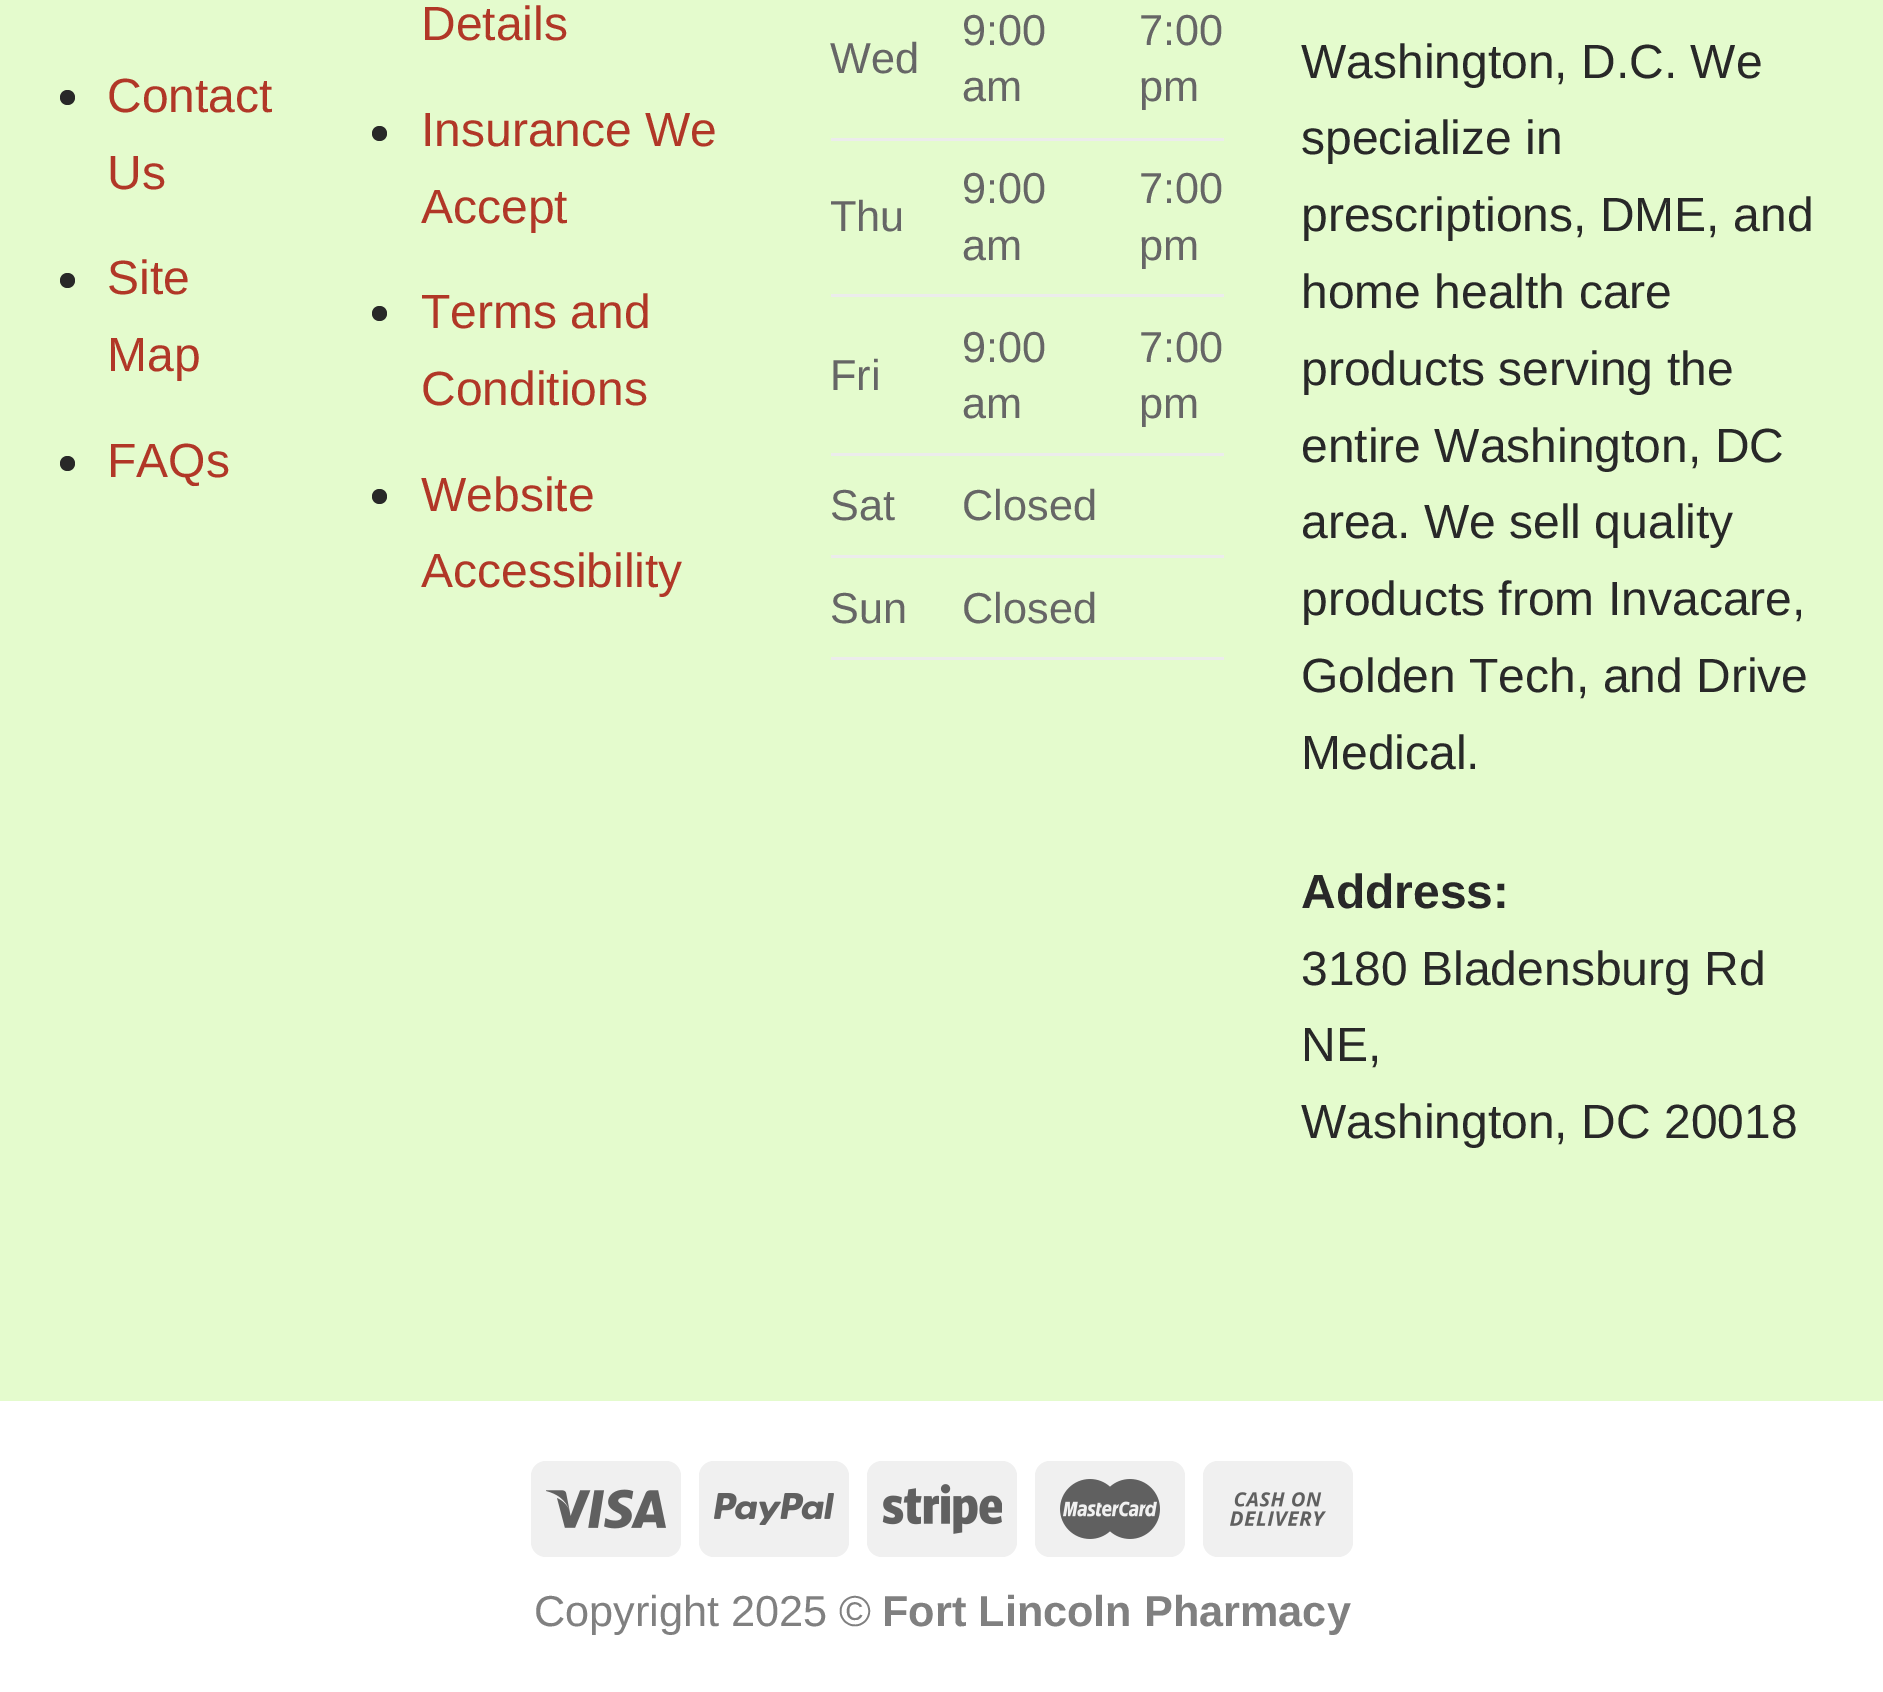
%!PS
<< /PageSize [1883 1692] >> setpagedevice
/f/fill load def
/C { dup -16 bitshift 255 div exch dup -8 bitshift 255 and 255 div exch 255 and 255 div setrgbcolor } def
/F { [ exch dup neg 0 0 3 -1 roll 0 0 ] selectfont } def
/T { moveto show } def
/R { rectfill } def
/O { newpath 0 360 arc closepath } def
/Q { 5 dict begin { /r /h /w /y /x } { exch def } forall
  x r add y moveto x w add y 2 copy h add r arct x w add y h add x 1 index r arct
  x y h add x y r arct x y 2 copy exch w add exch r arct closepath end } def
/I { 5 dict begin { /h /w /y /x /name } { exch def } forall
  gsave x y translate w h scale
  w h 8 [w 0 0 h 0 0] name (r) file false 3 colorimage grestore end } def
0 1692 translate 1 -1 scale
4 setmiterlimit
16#FFFFFF C
0 0 1883 1692 R
16#E4FBCD C
0 0 1883 1401 R
16#282828 C
67.5 97.5 7.5 O f
/LiberationSans-Regular 48 F
16#B13727 C
(Contact) 107 112 T
(Us) 107 189 T
16#282828 C
67.5 280.5 7.5 O f
16#B13727 C
(Site) 107 294 T
(Map) 107 371 T
16#282828 C
67.5 463.5 7.5 O f
16#B13727 C
(FAQs) 107 477 T
(Details) 421 40 T
16#282828 C
379.5 133.5 7.5 O f
16#B13727 C
(Insurance We) 421 146 T
(Accept) 421 223 T
16#282828 C
379.5 313.5 7.5 O f
16#B13727 C
(Terms and) 421 328 T
(Conditions) 421 405 T
16#282828 C
379.5 496.5 7.5 O f
16#B13727 C
(Website) 421 511 T
(Accessibility) 421 587 T
16#ECECEC C
831 138 393 3 R
/LiberationSans-Regular 43.25 F
16#666666 C
(Wed) 830 73 T
(9:00) 962 45 T
(am) 962 101 T
(7:00) 1139 45 T
(pm) 1139 101 T
16#ECECEC C
831 294 393 3 R
16#666666 C
(Thu) 830 231 T
(9:00) 962 203 T
(am) 962 260 T
(7:00) 1139 203 T
(pm) 1139 260 T
16#ECECEC C
831 453 393 3 R
16#666666 C
(Fri) 830 390 T
(9:00) 962 362 T
(am) 962 418 T
(7:00) 1139 362 T
(pm) 1139 418 T
16#ECECEC C
831 555 393 3 R
16#666666 C
(Sat) 830 520 T
(Closed) 962 520 T
16#ECECEC C
831 657 393 3 R
16#666666 C
(Sun) 830 623 T
(Closed) 962 623 T
/LiberationSans-Regular 48 F
16#282828 C
(Washington, D.C. We) 1301 78 T
(specialize in) 1301 154 T
(prescriptions, DME, and) 1301 231 T
(home health care) 1301 308 T
(products serving the) 1301 385 T
(entire Washington, DC) 1301 462 T
(area. We sell quality) 1301 538 T
(products from Invacare,) 1301 615 T
(Golden Tech, and Drive) 1301 692 T
(Medical.) 1301 769 T
/LiberationSans-Bold 48 F
(Address:) 1301 908 T
/LiberationSans-Regular 48 F
(3180 Bladensburg Rd) 1301 985 T
(NE,) 1301 1061 T
(Washington, DC 20018) 1301 1138 T
16#F0F0F0 C
531 1461 150 96 15 Q f
(1.rgb) 546 1489 120 40 I
699 1461 150 96 15 Q f
(2.rgb) 714 1493 120 32 I
867 1461 150 96 15 Q f
(3.rgb) 882 1484 120 50 I
1035 1461 150 96 15 Q f
(4.rgb) 1060 1479 100 60 I
1203 1461 150 96 15 Q f
(5.rgb) 1230 1492 96 34 I
/LiberationSans-Regular 43.25 F
16#808080 C
(Copyright 2025 ©) 534 1626 T
/LiberationSans-Bold 43.25 F
(Fort Lincoln Pharmacy) 882 1626 T
showpage
